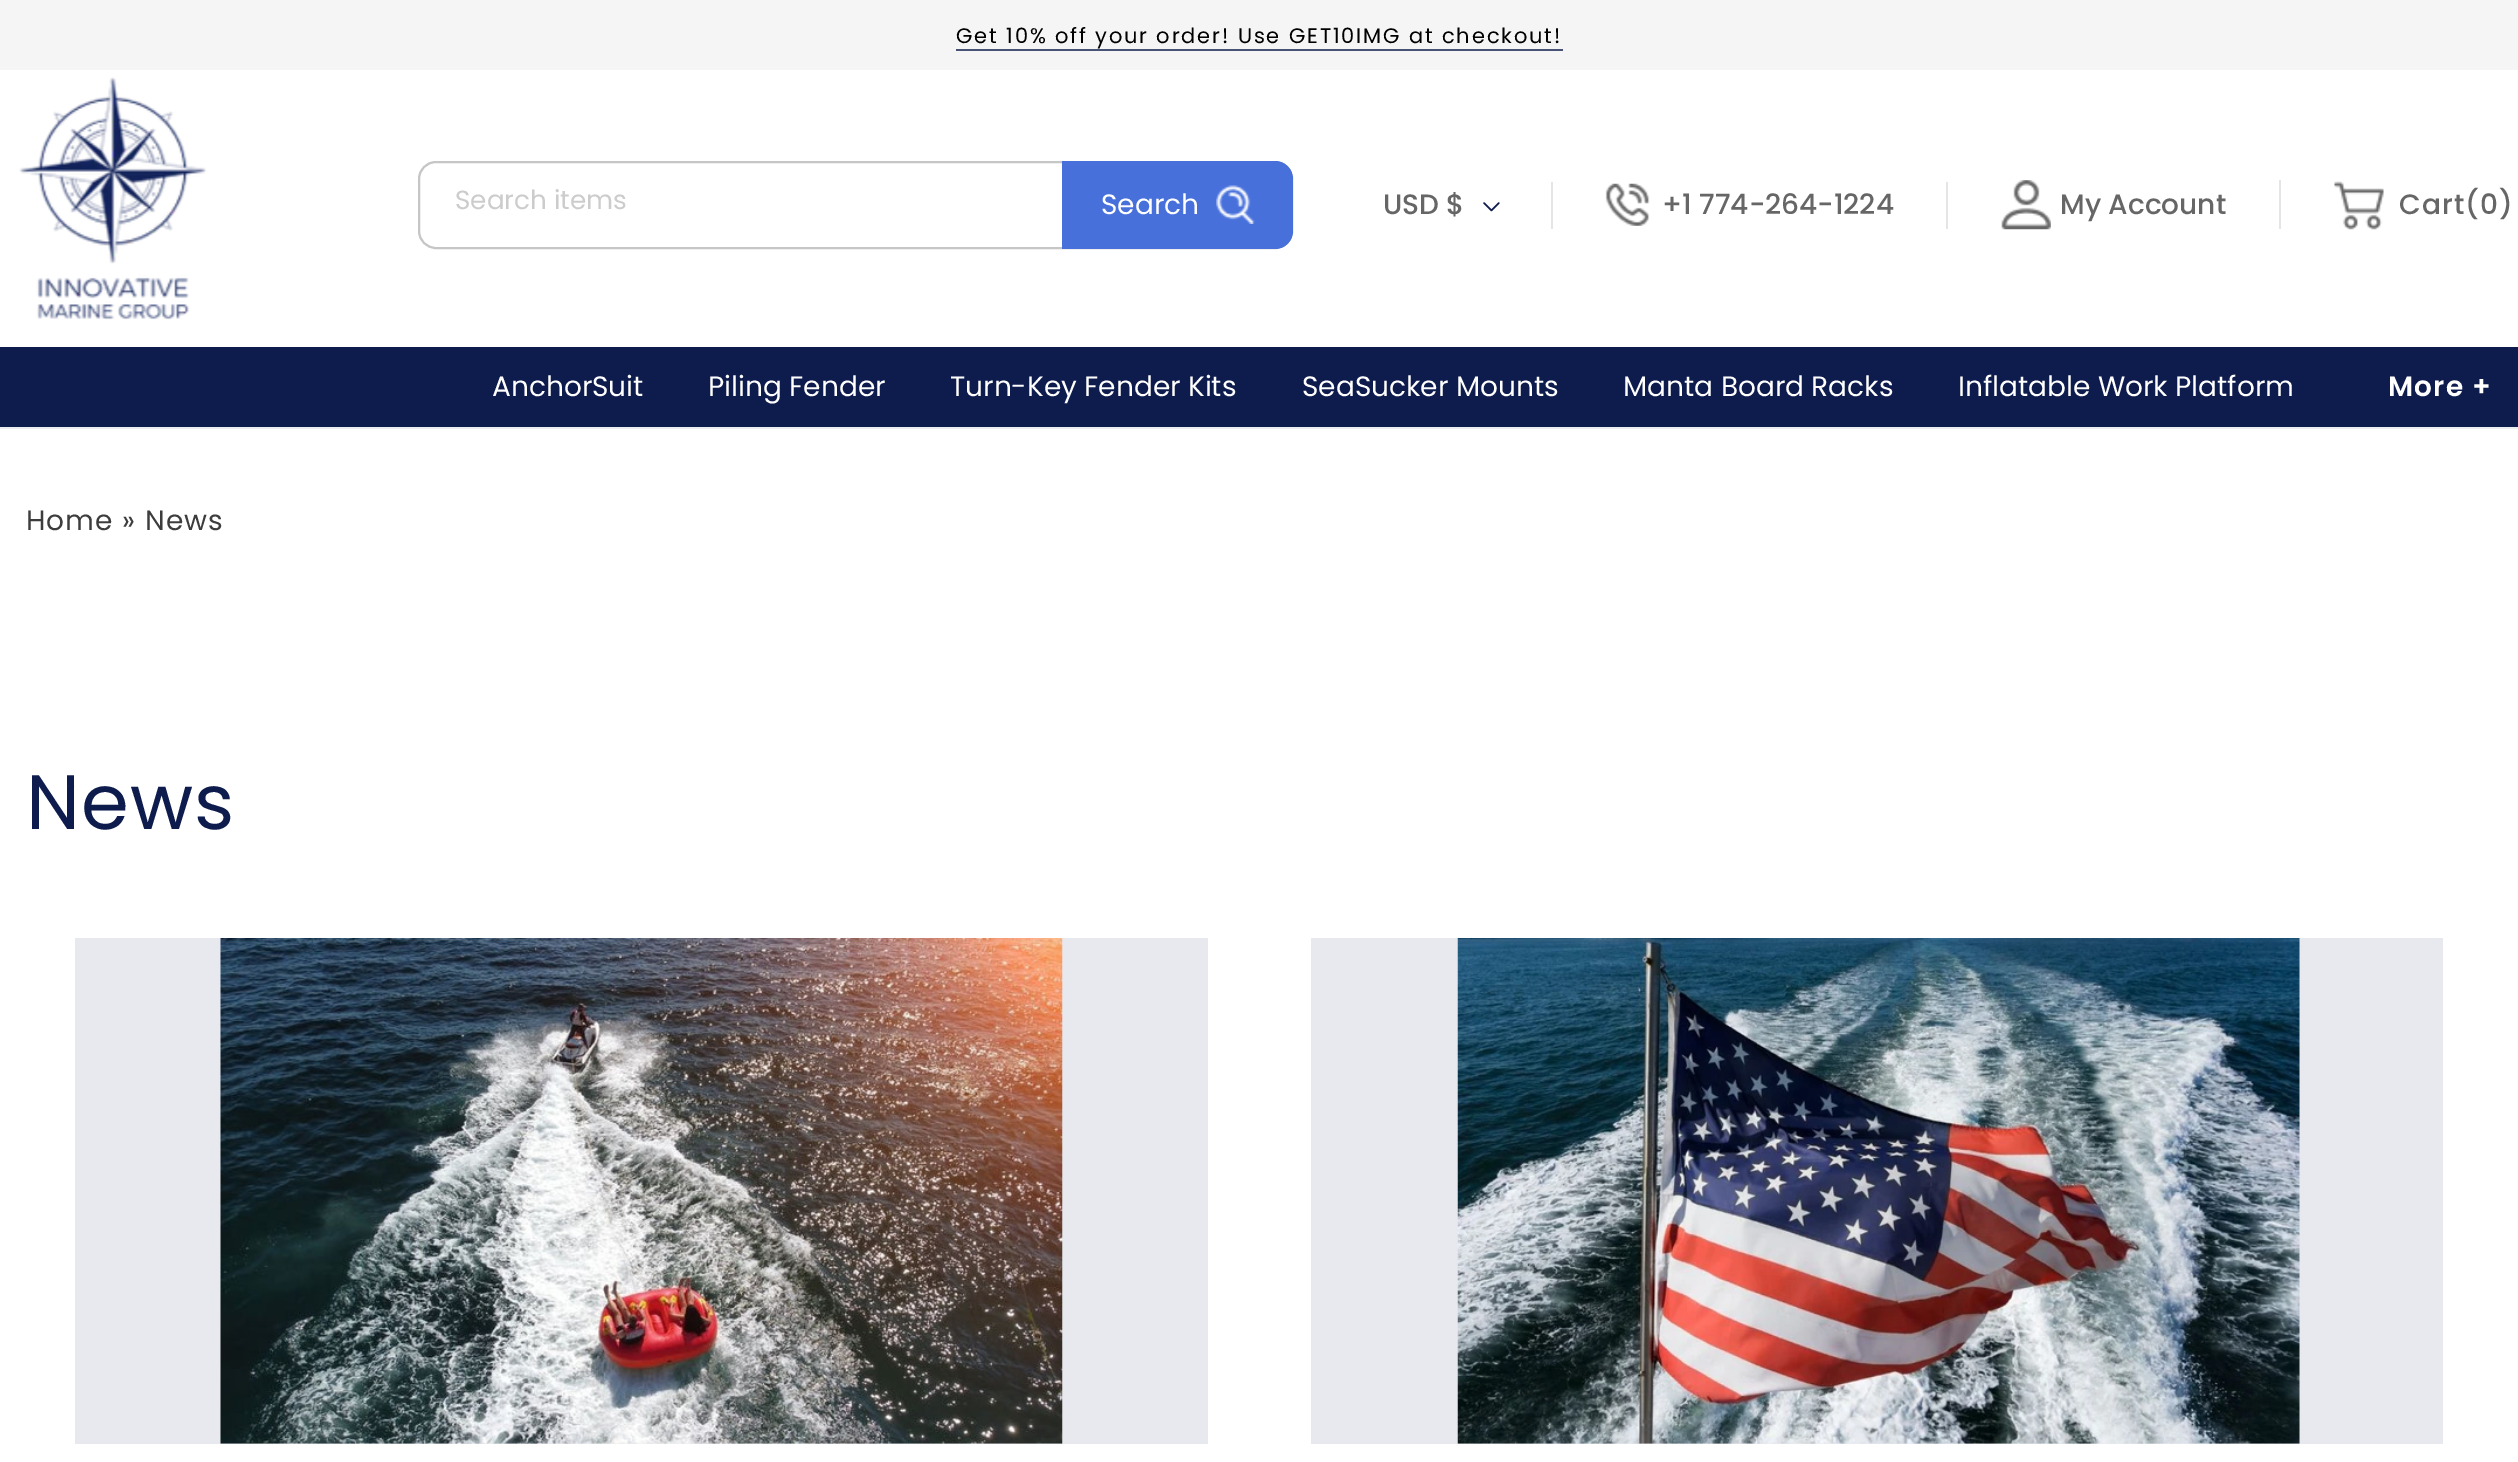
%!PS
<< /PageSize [2518 1462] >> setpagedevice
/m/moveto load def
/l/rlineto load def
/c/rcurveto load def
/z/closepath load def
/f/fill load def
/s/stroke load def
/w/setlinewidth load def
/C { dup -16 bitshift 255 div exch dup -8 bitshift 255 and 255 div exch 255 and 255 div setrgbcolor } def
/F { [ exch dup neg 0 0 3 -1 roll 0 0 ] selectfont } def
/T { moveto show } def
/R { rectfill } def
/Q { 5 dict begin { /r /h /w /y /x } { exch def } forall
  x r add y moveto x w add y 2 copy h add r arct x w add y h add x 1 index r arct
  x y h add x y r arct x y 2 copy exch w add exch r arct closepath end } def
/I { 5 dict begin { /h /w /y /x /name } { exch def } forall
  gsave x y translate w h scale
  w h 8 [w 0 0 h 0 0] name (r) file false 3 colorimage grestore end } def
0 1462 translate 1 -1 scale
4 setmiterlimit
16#FFFFFF C
0 0 2518 1462 R
16#F5F5F5 C
0 0 2518 70 R
/Poppins-Regular 21 F
16#000000 C
956 43 m 1.85 0 (Get 10% off your order! Use GET10IMG at checkout!) ashow
16#485277 C
956 49 607 2 R
16#ECEDF1 C
0 427 2518 2 R
(1.rgb) 19 77 188 243 I
16#C6C6C6 C
2 w
419 162 873 86 17 Q s
/Poppins-Regular 26.25 F
16#CCCCCC C
(Search items) 455 209 T
16#4770DB C
1062 161 m 213 0 l 10 0 18 8 18 18 c 0 52 l 0 10 -8 18 -18 18 c -213 0 l z f
/Poppins-Regular 28 F
16#FFFFFF C
(Search) 1101 214 T
(2.rgb) 1216 185 39 39 I
/Poppins-Medium 28 F
16#666666 C
(USD $) 1383 214 T
(3.rgb) 1483 202 17 10 I
16#E5E5E5 C
1946 182 2 47 R
1551 182 2 47 R
(4.rgb) 1605 183 45 43 I
16#666666 C
(+1 774-264-1224) 1662 214 T
16#E5E5E5 C
2279 180 2 49 R
(5.rgb) 2001 180 50 50 I
16#666666 C
(My Account) 2060 214 T
(6.rgb) 2334 181 50 49 I
2399 214 m 1.1 0 (Cart\(0\)) ashow
16#0E1B4D C
0 347 2518 80 R
/Poppins-Regular 28 F
16#FFFFFF C
(AnchorSuit) 492 396 T
(Piling Fender) 708 396 T
(Turn-Key Fender Kits) 950 396 T
(SeaSucker Mounts) 1302 396 T
(Manta Board Racks) 1623 396 T
(Inflatable Work Platform) 1958 396 T
/Poppins-SemiBold 28 F
2388 396 m 1.1 0 (More +) ashow
/Poppins-Regular 28 F
16#3E3D3D C
26 530 m 1.1 0 (Home » News) ashow
/Poppins-Regular 77 F
16#0E1B4D C
26 829 m 1 0 (News) ashow
16#E8E9EE C
75 938 1133 506 R
(7.rgb) 220 938 843 506 I
1311 938 1132 506 R
(8.rgb) 1457 938 843 506 I
showpage
